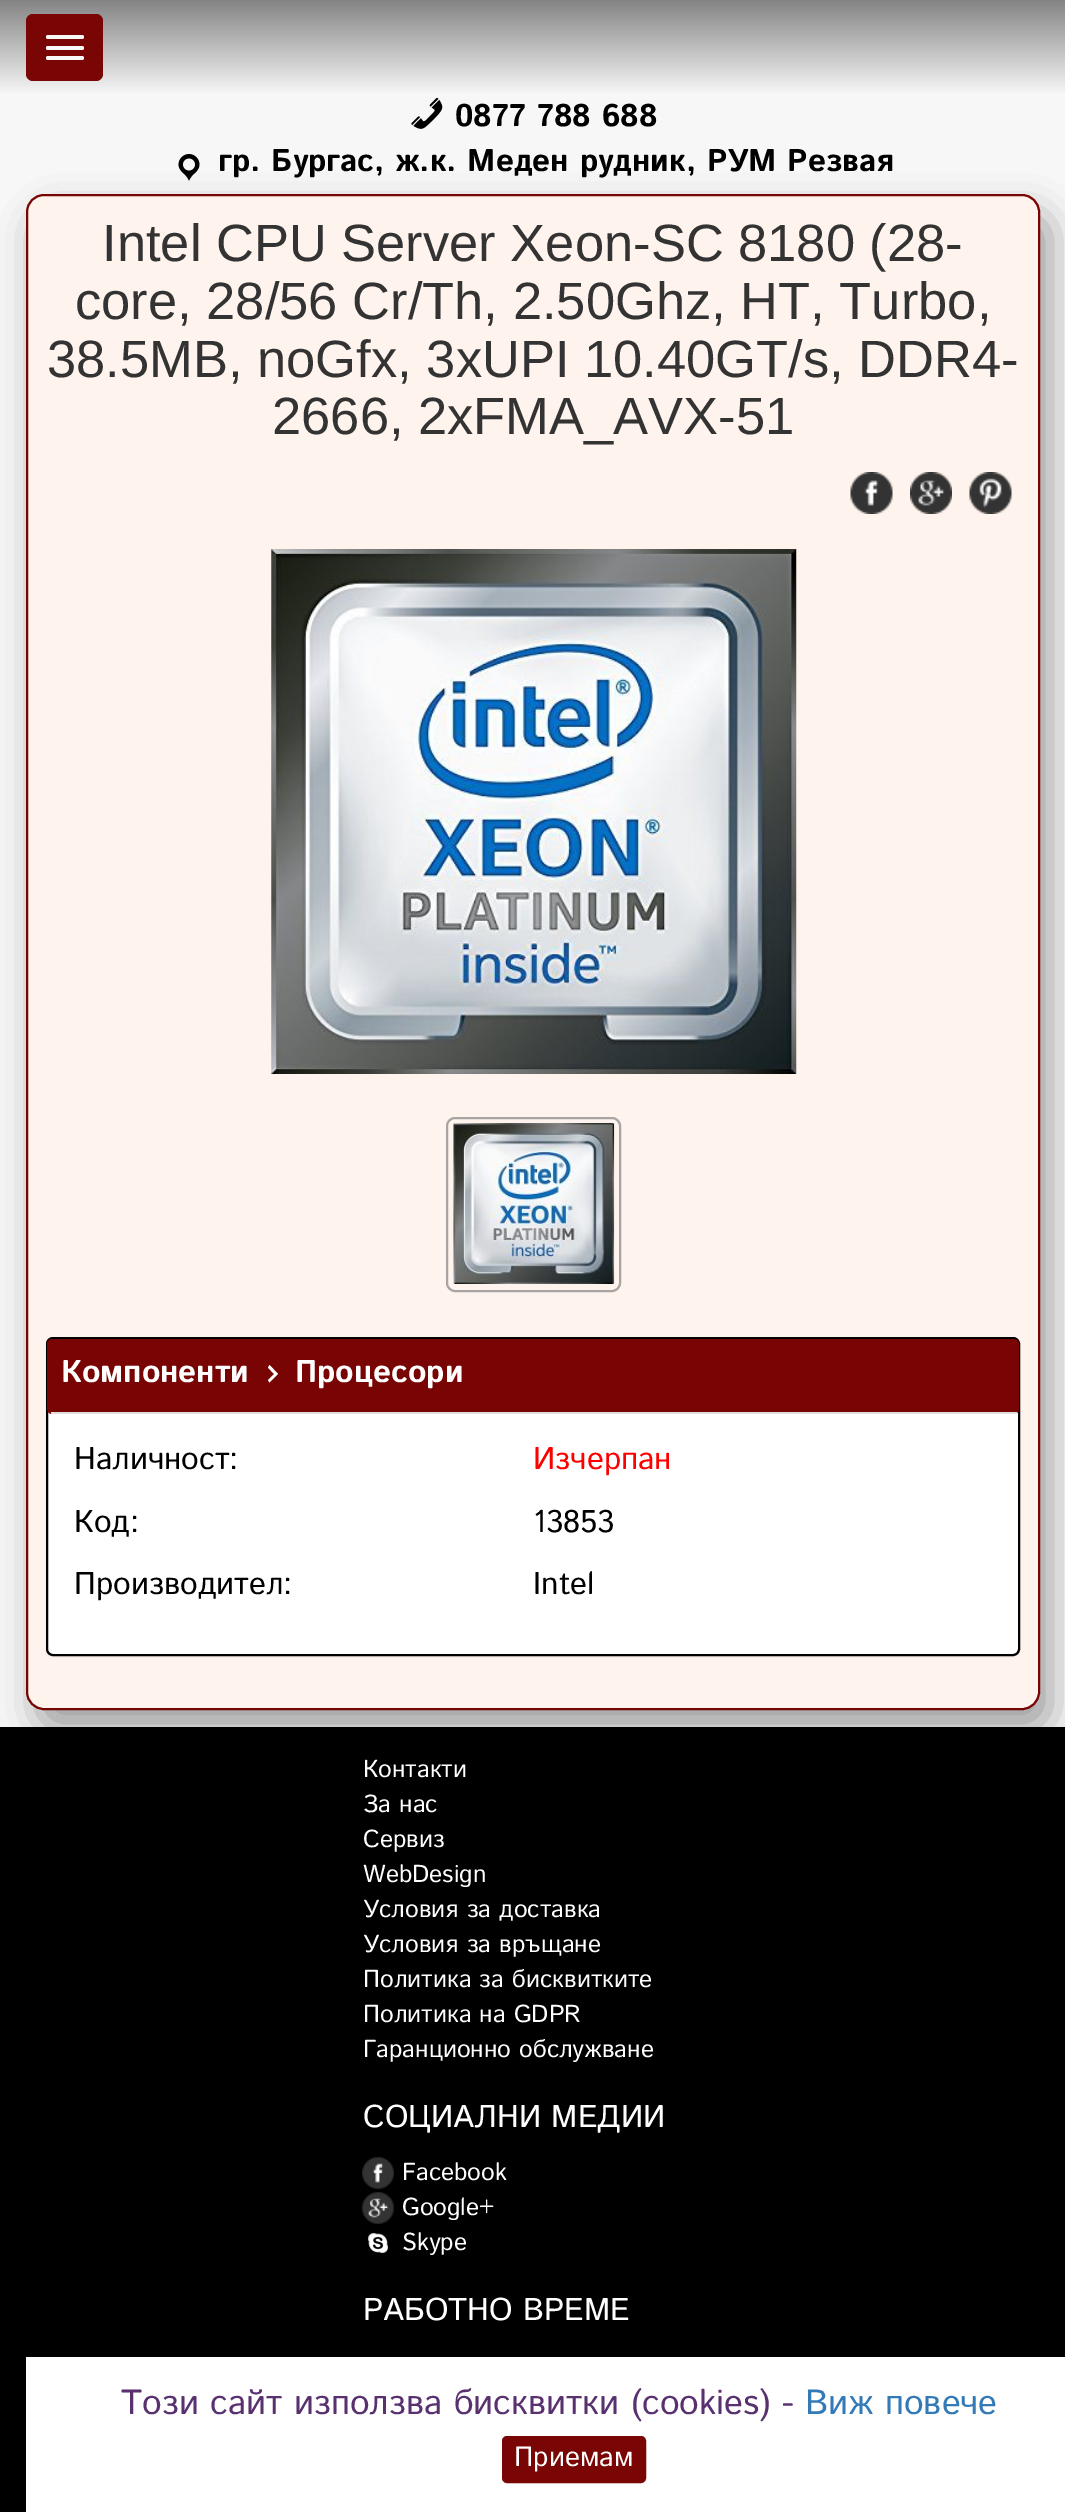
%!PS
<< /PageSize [1065 2512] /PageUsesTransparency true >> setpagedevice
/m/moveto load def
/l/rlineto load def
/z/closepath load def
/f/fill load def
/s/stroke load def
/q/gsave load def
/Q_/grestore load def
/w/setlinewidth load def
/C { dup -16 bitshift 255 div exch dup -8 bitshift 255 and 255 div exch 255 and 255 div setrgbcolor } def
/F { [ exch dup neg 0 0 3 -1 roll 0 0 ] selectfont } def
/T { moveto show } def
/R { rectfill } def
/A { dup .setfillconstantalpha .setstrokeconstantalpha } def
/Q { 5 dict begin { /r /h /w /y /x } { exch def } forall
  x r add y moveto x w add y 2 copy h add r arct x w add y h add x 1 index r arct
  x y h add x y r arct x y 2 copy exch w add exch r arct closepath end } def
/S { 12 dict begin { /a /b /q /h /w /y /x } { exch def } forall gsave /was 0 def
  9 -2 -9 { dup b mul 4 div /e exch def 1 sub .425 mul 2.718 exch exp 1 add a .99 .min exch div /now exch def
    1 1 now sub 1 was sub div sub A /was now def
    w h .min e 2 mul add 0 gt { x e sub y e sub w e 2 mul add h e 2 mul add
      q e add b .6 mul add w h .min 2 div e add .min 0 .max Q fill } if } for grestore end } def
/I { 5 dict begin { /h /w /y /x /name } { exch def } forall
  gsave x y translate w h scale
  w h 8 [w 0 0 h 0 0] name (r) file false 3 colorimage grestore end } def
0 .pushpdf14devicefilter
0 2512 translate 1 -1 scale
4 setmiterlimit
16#F7F7F7 C
0 0 1065 2512 R
q 0 0 m 1065 0 l 0 93 l -1065 0 l z clip newpath
<< /ShadingType 2 /ColorSpace /DeviceRGB /Coords [533 0 533 95] /Extend [true true] /Function << /FunctionType 2 /Domain [0 1] /C0 [.518 .518 .518] /C1 [.969 .969 .969] /N 1 >> >> shfill Q_
16#790505 C
26 14 77 67 7 Q f
16#F7F7F7 C
46 35 38 4 2 Q f
46 46 38 4 2 Q f
46 56 38 4 2 Q f
(1.rgb) 411 97 32 32 I
/IstokWeb-Bold 31.5 F
16#000000 C
(0877 788 688) 455 126 T
(2.rgb) 178 154 22 27 I
(гр. Бургас, ж.к. Меден рудник, РУМ Резвая) 218 171 T
16#000001 C
37 214 1013 1515 18 18.5 .35 S
16#FFF4ED C
27 195 1012 1514 17 Q q f Q_
16#790404 C
2 w
s
/LiberationSans-Regular 52.5 F
16#333333 C
(Intel CPU Server Xeon-SC 8180 \(28-) 102 261 T
(core, 28/56 Cr/Th, 2.50Ghz, HT, Turbo,) 75 319 T
(38.5MB, noGfx, 3xUPI 10.40GT/s, DDR4-) 47 377 T
(2666, 2xFMA_AVX-51) 272 434 T
(3.rgb) 850 472 43 42 I
(4.rgb) 910 472 42 42 I
(5.rgb) 969 472 43 42 I
(6.rgb) 271 549 526 525 I
16#A8A4A4 C
447 1118 173 173 8 Q s
(7.rgb) 453 1123 162 161 I
16#000000 C
46 1339 974 318 7 1 .05 S
16#FFFFFF C
47 1338 972 317 6 Q q f Q_
16#000000 C
s
16#790404 C
47 1339 972 75 5 Q f
16#DDDDDD C
51 1412 966 2 R
/IstokWeb-Bold 31.5 F
16#FFFFFF C
(Компоненти) 61 1382 T
268 1380 m 6 -6 l -6 -6.5 l 1.5 -2.5 l 8.5 9 l -8.5 8.5 l z f
(Процесори) 295 1382 T
/IstokWeb-Regular 31.5 F
16#000000 C
(Наличност:) 74 1469 T
16#FF0000 C
(Изчерпан) 533 1469 T
16#000000 C
(Код:) 74 1532 T
(13853) 533 1532 T
(Производител:) 74 1594 T
(Intel) 533 1594 T
0 1727 1065 785 R
/IstokWeb-Regular 24.5 F
16#FFFFFF C
(Контакти) 363 1777 T
(За нас) 363 1812 T
(Сервиз) 363 1847 T
(WebDesign) 363 1882 T
(Условия за доставка) 363 1917 T
(Условия за връщане) 363 1952 T
(Политика за бисквитките) 363 1987 T
(Политика на GDPR) 363 2022 T
(Гаранционно обслужване) 363 2057 T
/IstokWeb-Regular 31.5 F
(СОЦИАЛНИ МЕДИИ) 363 2127 T
(8.rgb) 362 2157 32 32 I
/IstokWeb-Regular 24.5 F
(Facebook) 402 2180 T
(9.rgb) 362 2192 32 32 I
(Google+) 402 2215 T
(10.rgb) 367 2232 22 22 I
(Skype) 402 2250 T
/IstokWeb-Regular 31.5 F
(РАБОТНО ВРЕМЕ) 363 2320 T
26 2357 1039 155 R
/IstokWeb-Regular 35 F
16#59316F C
(Този сайт използва бисквитки \(cookies\) -) 121 2414 T
16#337AB7 C
(Виж повече) 805 2414 T
16#790505 C
503 2437 142 45 4 Q q f Q_
s
/IstokWeb-Regular 28 F
16#FFFFFF C
(Приемам) 514 2466 T
.poppdf14devicefilter showpage
